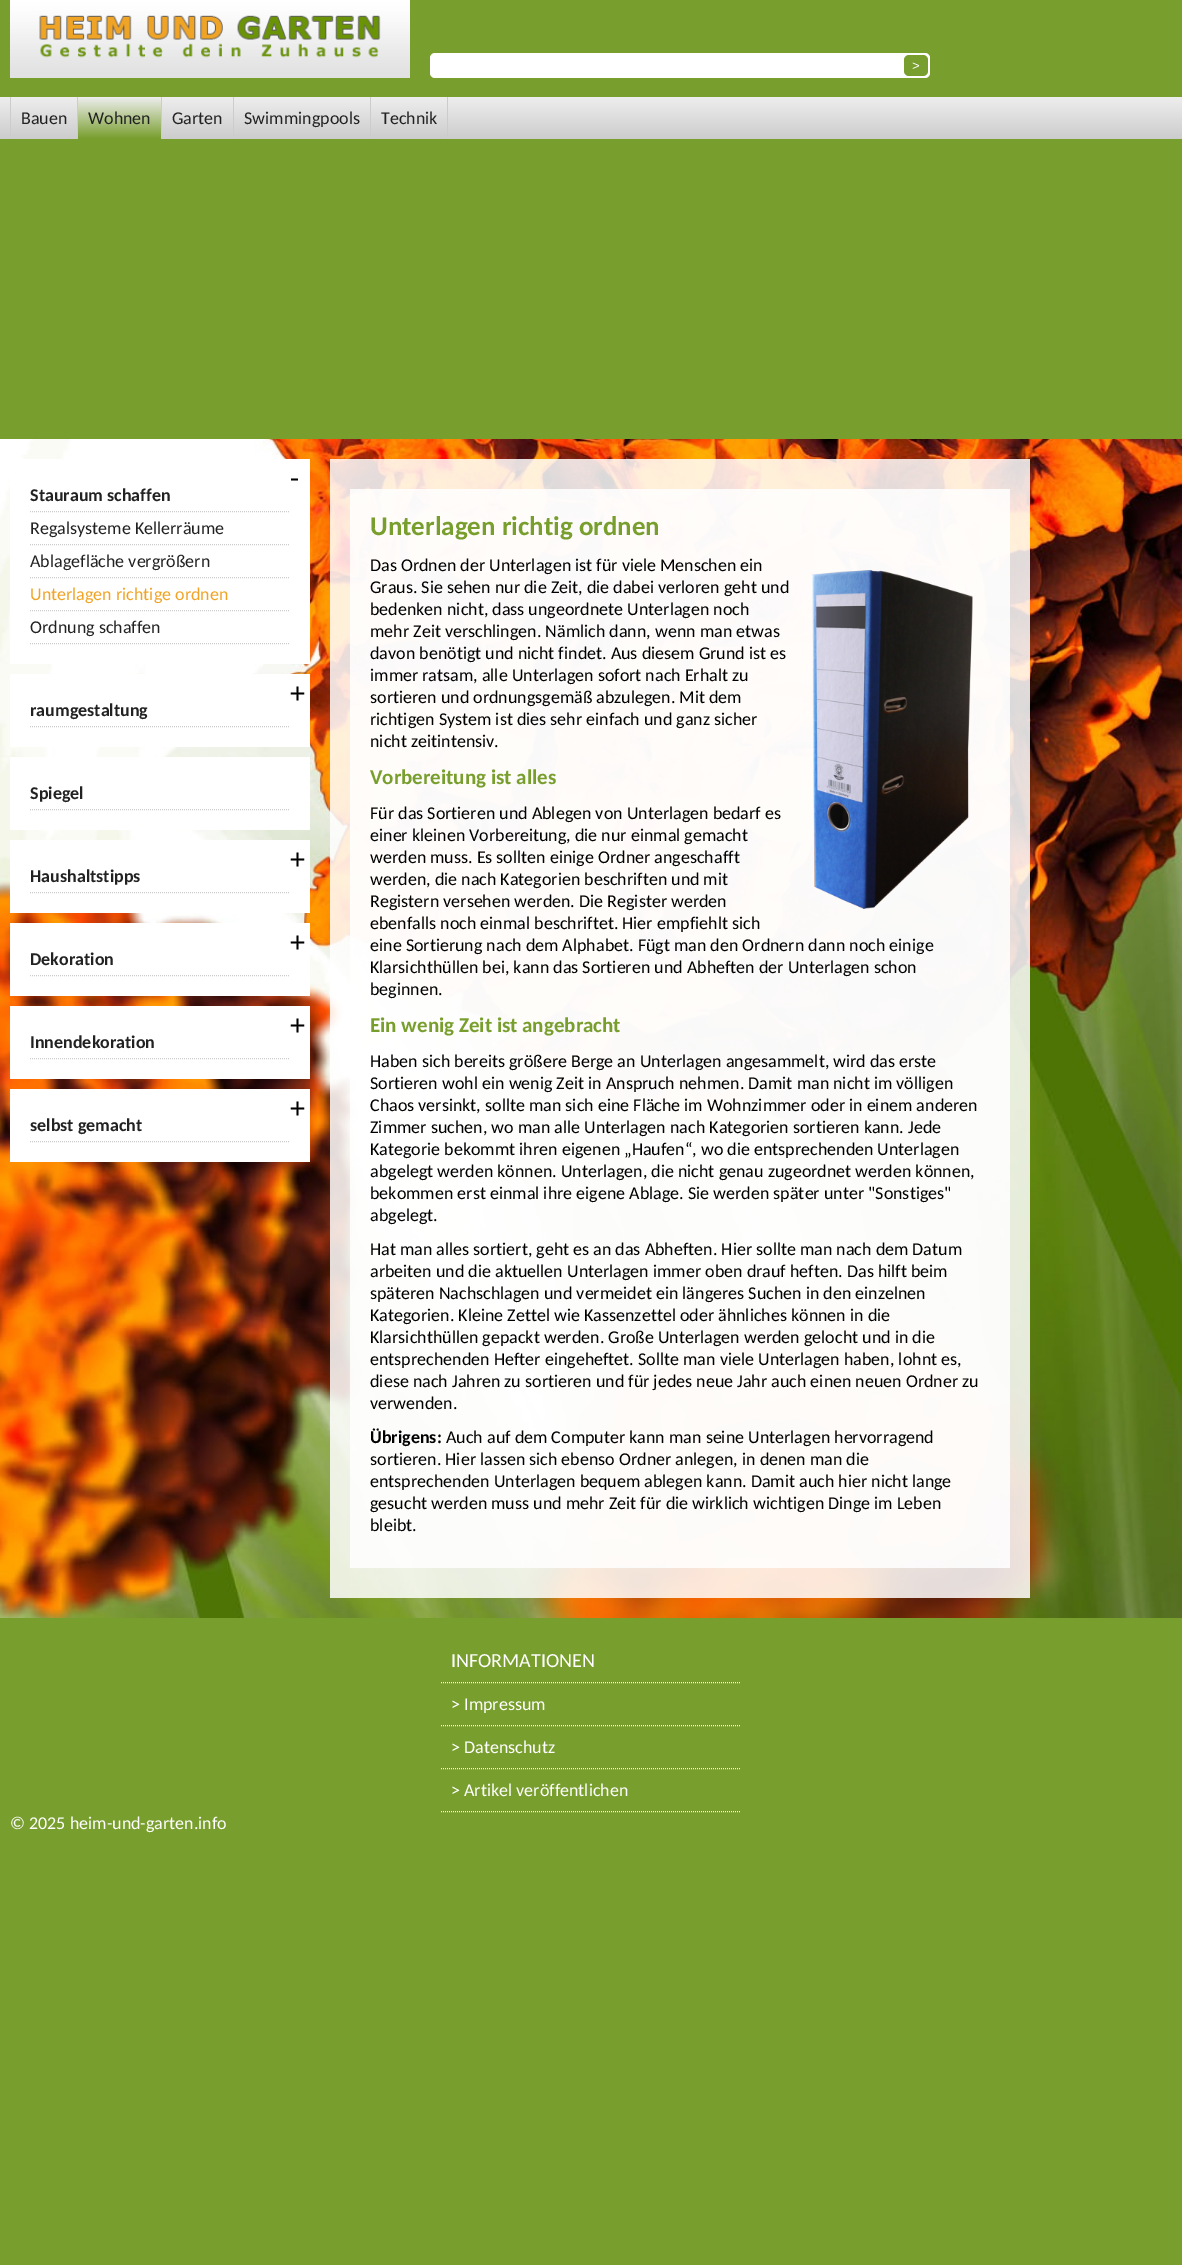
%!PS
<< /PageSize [1182 2265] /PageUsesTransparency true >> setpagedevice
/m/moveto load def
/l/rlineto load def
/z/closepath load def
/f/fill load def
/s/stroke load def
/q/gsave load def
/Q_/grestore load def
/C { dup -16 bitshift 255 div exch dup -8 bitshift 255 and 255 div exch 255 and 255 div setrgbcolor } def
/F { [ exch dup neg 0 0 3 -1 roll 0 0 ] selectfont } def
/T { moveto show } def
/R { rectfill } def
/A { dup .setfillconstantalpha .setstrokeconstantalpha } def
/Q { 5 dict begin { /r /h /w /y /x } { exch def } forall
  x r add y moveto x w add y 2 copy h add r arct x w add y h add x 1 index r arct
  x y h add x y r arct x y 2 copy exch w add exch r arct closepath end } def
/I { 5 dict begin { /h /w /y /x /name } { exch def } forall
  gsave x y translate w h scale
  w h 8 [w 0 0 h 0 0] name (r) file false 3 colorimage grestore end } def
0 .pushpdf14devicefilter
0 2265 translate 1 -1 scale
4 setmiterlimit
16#789E2D C
0 0 1182 2265 R
(1.rgb) 10 0 400 78 I
16#FFFFFF C
430 53 500 25 5 Q f
16#789E2D C
904 55 24 21 5 Q f
/LiberationSans-Regular 13 F
16#FFFFFF C
(>) 912 70 T
q 0 97 m 1182 0 l 0 42 l -1182 0 l z clip newpath
<< /ShadingType 2 /ColorSpace /DeviceRGB /Coords [591 97 591 139] /Extend [true true] /Function << /FunctionType 2 /Domain [0 1] /C0 [.933 .933 .933] /C1 [.8 .8 .8] /N 1 >> >> shfill Q_
16#CCCCCC C
10 97 1 42 R
/Carlito-Regular 18 F
16#222222 C
(Bauen) 21 124 T
q 78 98 m 83 0 l 0 41 l -83 0 l z clip newpath
<< /ShadingType 2 /ColorSpace /DeviceRGB /Coords [120 97 120 139] /Extend [true true] /Function << /FunctionType 2 /Domain [0 1] /C0 [.933 .933 .933] /C1 [.471 .62 .176] /N 1 >> >> shfill Q_
16#CCCCCC C
161 97 1 42 R
77 97 1 42 R
16#222222 C
(Wohnen) 88 124 T
16#CCCCCC C
233 97 1 42 R
16#222222 C
(Garten) 172 124 T
16#CCCCCC C
370 97 1 42 R
16#222222 C
(Swimmingpools) 244 124 T
16#CCCCCC C
447 97 1 42 R
16#222222 C
(Technik) 381 124 T
(2.rgb) 0 439 1182 1179 I
16#FFFFFF C
10 459 300 205 R
/Carlito-Regular 30 F
16#000000 C
(-) 290 488 T
16#CCCCCC C
[1 1] 0 setdash
30 511.5 m 260 0 l s
/Carlito-Bold 18 F
16#222222 C
(Stauraum schaffen) 30 501 T
16#CCCCCC C
30 544.5 m 260 0 l s
/Carlito-Regular 18 F
16#222222 C
(Regalsysteme Kellerräume) 30 534 T
16#CCCCCC C
30 577.5 m 260 0 l s
16#222222 C
(Ablagefläche vergrößern) 30 567 T
16#CCCCCC C
30 610.5 m 260 0 l s
16#F0A426 C
(Unterlagen richtige ordnen) 30 600 T
16#CCCCCC C
30 643.5 m 260 0 l s
16#222222 C
(Ordnung schaffen) 30 633 T
16#FFFFFF C
10 674 300 73 R
/Carlito-Regular 30 F
16#000000 C
(+) 290 703 T
16#CCCCCC C
30 726.5 m 260 0 l s
/Carlito-Bold 18 F
16#222222 C
(raumgestaltung) 30 716 T
16#FFFFFF C
10 757 300 73 R
16#CCCCCC C
30 809.5 m 260 0 l s
16#222222 C
(Spiegel) 30 799 T
16#FFFFFF C
10 840 300 73 R
/Carlito-Regular 30 F
16#000000 C
(+) 290 869 T
16#CCCCCC C
30 892.5 m 260 0 l s
/Carlito-Bold 18 F
16#222222 C
(Haushaltstipps) 30 882 T
16#FFFFFF C
10 923 300 73 R
/Carlito-Regular 30 F
16#000000 C
(+) 290 952 T
16#CCCCCC C
30 975.5 m 260 0 l s
/Carlito-Bold 18 F
16#222222 C
(Dekoration) 30 965 T
16#FFFFFF C
10 1006 300 73 R
/Carlito-Regular 30 F
16#000000 C
(+) 290 1035 T
16#CCCCCC C
30 1058.5 m 260 0 l s
/Carlito-Bold 18 F
16#222222 C
(Innendekoration) 30 1048 T
16#FFFFFF C
10 1089 300 73 R
/Carlito-Regular 30 F
16#000000 C
(+) 290 1118 T
16#CCCCCC C
30 1141.5 m 260 0 l s
/Carlito-Bold 18 F
16#222222 C
(selbst gemacht) 30 1131 T
0.85 A
16#FFFFFF C
330 459 700 1139 R
350 489 660 1079 R
/Carlito-Bold 27 F
1 A
16#789E2D C
(Unterlagen richtig ordnen) 370 535 T
/Carlito-Regular 18 F
16#000000 C
(Das Ordnen der Unterlagen ist für viele Menschen ein) 370 571 T
(Graus. Sie sehen nur die Zeit, die dabei verloren geht und) 370 593 T
(3.rgb) 812 570 161 339 I
(bedenken nicht, dass ungeordnete Unterlagen noch) 370 615 T
(mehr Zeit verschlingen. Nämlich dann, wenn man etwas) 370 637 T
(davon benötigt und nicht findet. Aus diesem Grund ist es) 370 659 T
(immer ratsam, alle Unterlagen sofort nach Erhalt zu) 370 681 T
(sortieren und ordnungsgemäß abzulegen. Mit dem) 370 703 T
(richtigen System ist dies sehr einfach und ganz sicher) 370 725 T
(nicht zeitintensiv.) 370 747 T
/Carlito-Bold 21 F
16#789E2D C
(Vorbereitung ist alles) 370 784 T
/Carlito-Regular 18 F
16#000000 C
(Für das Sortieren und Ablegen von Unterlagen bedarf es) 370 819 T
(einer kleinen Vorbereitung, die nur einmal gemacht) 370 841 T
(werden muss. Es sollten einige Ordner angeschafft) 370 863 T
(werden, die nach Kategorien beschriften und mit) 370 885 T
(Registern versehen werden. Die Register werden) 370 907 T
(ebenfalls noch einmal beschriftet. Hier empfiehlt sich) 370 929 T
(eine Sortierung nach dem Alphabet. Fügt man den Ordnern dann noch einige) 370 951 T
(Klarsichthüllen bei, kann das Sortieren und Abheften der Unterlagen schon) 370 973 T
(beginnen.) 370 995 T
/Carlito-Bold 21 F
16#789E2D C
(Ein wenig Zeit ist angebracht) 370 1032 T
/Carlito-Regular 18 F
16#000000 C
(Haben sich bereits größere Berge an Unterlagen angesammelt, wird das erste) 370 1067 T
(Sortieren wohl ein wenig Zeit in Anspruch nehmen. Damit man nicht im völligen) 370 1089 T
(Chaos versinkt, sollte man sich eine Fläche im Wohnzimmer oder in einem anderen) 370 1111 T
(Zimmer suchen, wo man alle Unterlagen nach Kategorien sortieren kann. Jede) 370 1133 T
(Kategorie bekommt ihren eigenen „Haufen“, wo die entsprechenden Unterlagen) 370 1155 T
(abgelegt werden können. Unterlagen, die nicht genau zugeordnet werden können,) 370 1177 T
(bekommen erst einmal ihre eigene Ablage. Sie werden später unter "Sonstiges") 370 1199 T
(abgelegt.) 370 1221 T
(Hat man alles sortiert, geht es an das Abheften. Hier sollte man nach dem Datum) 370 1255 T
(arbeiten und die aktuellen Unterlagen immer oben drauf heften. Das hilft beim) 370 1277 T
(späteren Nachschlagen und vermeidet ein längeres Suchen in den einzelnen) 370 1299 T
(Kategorien. Kleine Zettel wie Kassenzettel oder ähnliches können in die) 370 1321 T
(Klarsichthüllen gepackt werden. Große Unterlagen werden gelocht und in die) 370 1343 T
(entsprechenden Hefter eingeheftet. Sollte man viele Unterlagen haben, lohnt es,) 370 1365 T
(diese nach Jahren zu sortieren und für jedes neue Jahr auch einen neuen Ordner zu) 370 1387 T
(verwenden.) 370 1409 T
/Carlito-Bold 18 F
(Übrigens:) 370 1443 T
/Carlito-Regular 18 F
(Auch auf dem Computer kann man seine Unterlagen hervorragend) 446 1443 T
(sortieren. Hier lassen sich ebenso Ordner anlegen, in denen man die) 370 1465 T
(entsprechenden Unterlagen bequem ablegen kann. Damit auch hier nicht lange) 370 1487 T
(gesucht werden muss und mehr Zeit für die wirklich wichtigen Dinge im Leben) 370 1509 T
(bleibt.) 370 1531 T
16#FFFFFF C
441 1682.5 m 300 0 l s
/Carlito-Regular 20 F
(INFORMATIONEN) 451 1667 T
441 1725.5 m 300 0 l s
/Carlito-Regular 18 F
(> Impressum) 451 1710 T
441 1768.5 m 300 0 l s
(> Datenschutz) 451 1753 T
441 1811.5 m 300 0 l s
(> Artikel veröffentlichen) 451 1796 T
(© 2025 heim-und-garten.info) 10 1829 T
.poppdf14devicefilter showpage
